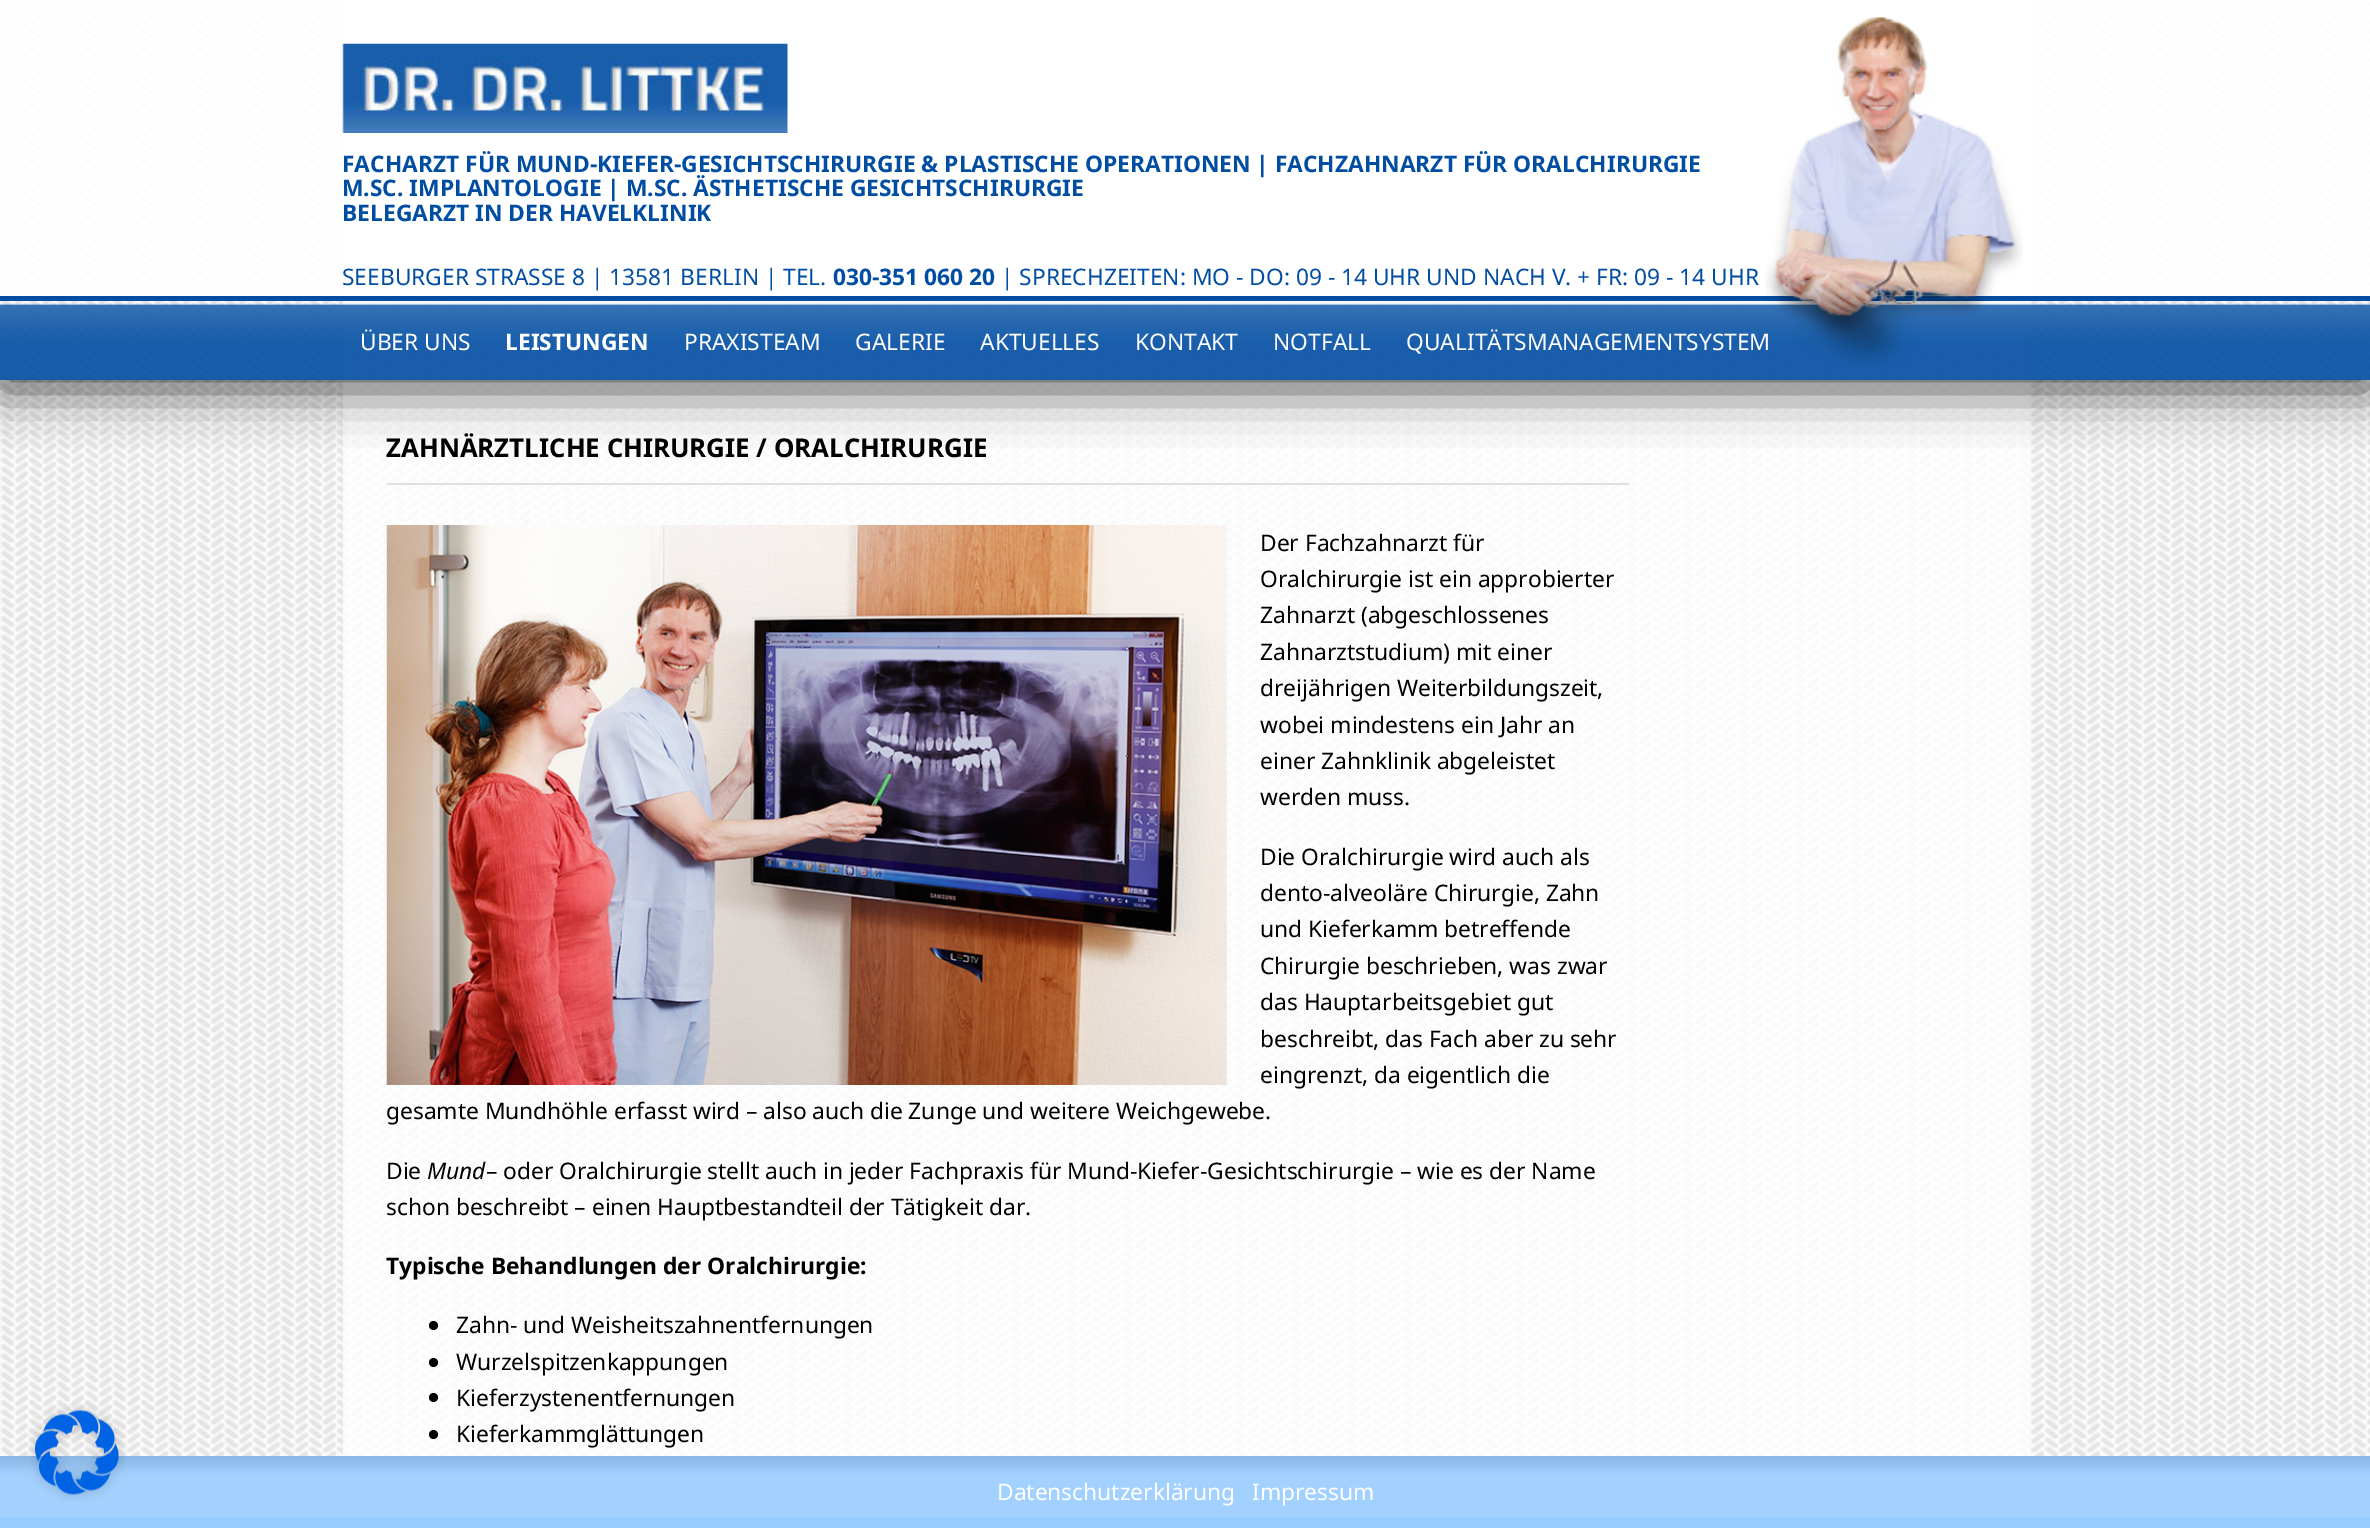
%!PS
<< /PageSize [2370 1528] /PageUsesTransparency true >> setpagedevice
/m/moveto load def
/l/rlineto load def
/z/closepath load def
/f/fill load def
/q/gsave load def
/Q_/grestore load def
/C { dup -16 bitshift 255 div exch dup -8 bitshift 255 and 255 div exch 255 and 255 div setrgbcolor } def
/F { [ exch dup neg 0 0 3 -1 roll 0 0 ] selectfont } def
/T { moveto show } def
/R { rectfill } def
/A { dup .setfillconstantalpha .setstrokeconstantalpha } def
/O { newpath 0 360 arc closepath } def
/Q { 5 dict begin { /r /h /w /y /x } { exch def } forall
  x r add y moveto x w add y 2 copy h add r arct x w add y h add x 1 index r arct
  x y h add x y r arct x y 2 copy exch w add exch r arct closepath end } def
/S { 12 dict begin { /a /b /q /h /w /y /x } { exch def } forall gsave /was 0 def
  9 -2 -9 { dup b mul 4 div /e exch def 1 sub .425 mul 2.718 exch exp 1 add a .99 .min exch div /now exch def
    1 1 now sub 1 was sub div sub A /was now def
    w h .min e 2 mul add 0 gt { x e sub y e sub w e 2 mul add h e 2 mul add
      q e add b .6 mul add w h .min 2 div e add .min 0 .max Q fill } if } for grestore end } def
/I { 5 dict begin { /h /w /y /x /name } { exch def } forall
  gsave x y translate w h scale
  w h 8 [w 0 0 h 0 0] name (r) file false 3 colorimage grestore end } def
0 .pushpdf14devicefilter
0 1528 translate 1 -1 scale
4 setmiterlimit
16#FFFFFF C
0 0 2370 1528 R
(1.rgb) 0 0 2370 1456 I
16#99CCFF C
0 1456 2370 72 R
(7.rgb) 0 1456 2370 61 I
(2.rgb) 28 1403 98 98 I
0.8 A
16#FFFFFF C
343 0 1687 1456 R
q
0 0 m 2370 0 l 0 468 l -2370 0 l z 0 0 m 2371 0 l 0 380 l -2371 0 l z eoclip newpath
1 A
16#000000 C
0 9 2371 380 0 26 .7 S
Q_
0.9 A
0 0 2370 296 R
1 A
16#004DA2 C
0 296 2370 5 R
(3.rgb) 342 43 446 90 I
/NotoSans-Bold 22.75 F
(FACHARZT FÜR MUND-KIEFER-GESICHTSCHIRURGIE & PLASTISCHE OPERATIONEN | FACHZAHNARZT FÜR ORALCHIRURGIE) 342 172 T
(M.SC. IMPLANTOLOGIE | M.SC. ÄSTHETISCHE GESICHTSCHIRURGIE) 342 196 T
(BELEGARZT IN DER HAVELKLINIK) 342 221 T
/NotoSans-Regular 22.75 F
(SEEBURGER STRASSE 8 | 13581 BERLIN | TEL.) 342 285 T
/NotoSans-Bold 22.75 F
(030-351 060 20) 833 285 T
/NotoSans-Regular 22.75 F
(| SPRECHZEITEN: MO - DO: 09 - 14 UHR UND NACH V. + FR: 09 - 14 UHR) 1001 285 T
(5.rgb) 0 303 2370 77 I
16#FFFFFF C
(QUALITÄTSMANAGEMENTSYSTEM) 1406 350 T
(4.rgb) 1765 17 258 350 I
(ÜBER UNS) 360 350 T
/NotoSans-Bold 22.75 F
(LEISTUNGEN) 505 350 T
/NotoSans-Regular 22.75 F
(PRAXISTEAM) 684 350 T
(GALERIE) 855 350 T
(AKTUELLES) 980 350 T
(KONTAKT) 1135 350 T
(NOTFALL) 1273 350 T
16#DFDFDF C
387 483 1242 2 R
/NotoSans-Bold 25.85 F
16#000000 C
(ZAHNÄRZTLICHE CHIRURGIE / ORALCHIRURGIE) 386 457 T
(6.rgb) 386 525 841 560 I
/NotoSans-Regular 22.75 F
(Der Fachzahnarzt für) 1260 551 T
(Oralchirurgie ist ein approbierter) 1260 587 T
(Zahnarzt \(abgeschlossenes) 1260 623 T
(Zahnarztstudium\) mit einer) 1260 660 T
(dreijährigen Weiterbildungszeit,) 1260 696 T
(wobei mindestens ein Jahr an) 1260 733 T
(einer Zahnklinik abgeleistet) 1260 769 T
(werden muss.) 1260 805 T
(Die Oralchirurgie wird auch als) 1260 865 T
(dento-alveoläre Chirurgie, Zahn) 1260 901 T
(und Kieferkamm betreffende) 1260 937 T
(Chirurgie beschrieben, was zwar) 1260 974 T
(das Hauptarbeitsgebiet gut) 1260 1010 T
(beschreibt, das Fach aber zu sehr) 1260 1047 T
(eingrenzt, da eigentlich die) 1260 1083 T
(gesamte Mundhöhle erfasst wird – also auch die Zunge und weitere Weichgewebe.) 386 1119 T
(Die) 386 1179 T
/NotoSans-Italic 22.75 F
(Mund) 427 1179 T
/NotoSans-Regular 22.75 F
(– oder Oralchirurgie stellt auch in jeder Fachpraxis für Mund-Kiefer-Gesichtschirurgie – wie es der Name) 486 1179 T
(schon beschreibt – einen Hauptbestandteil der Tätigkeit dar.) 386 1215 T
/NotoSans-Bold 22.75 F
(Typische Behandlungen der Oralchirurgie:) 386 1274 T
433.5 1325.5 4.5 O f
/NotoSans-Regular 22.75 F
(Zahn- und Weisheitszahnentfernungen) 456 1333 T
433.5 1362.5 4.5 O f
(Wurzelspitzenkappungen) 456 1370 T
433.5 1397.5 4.5 O f
(Kieferzystenentfernungen) 456 1406 T
433.5 1434.5 4.5 O f
(Kieferkammglättungen) 456 1442 T
16#FFFFFF C
(Datenschutzerklärung) 997 1500 T
(Impressum) 1252 1500 T
.poppdf14devicefilter showpage
